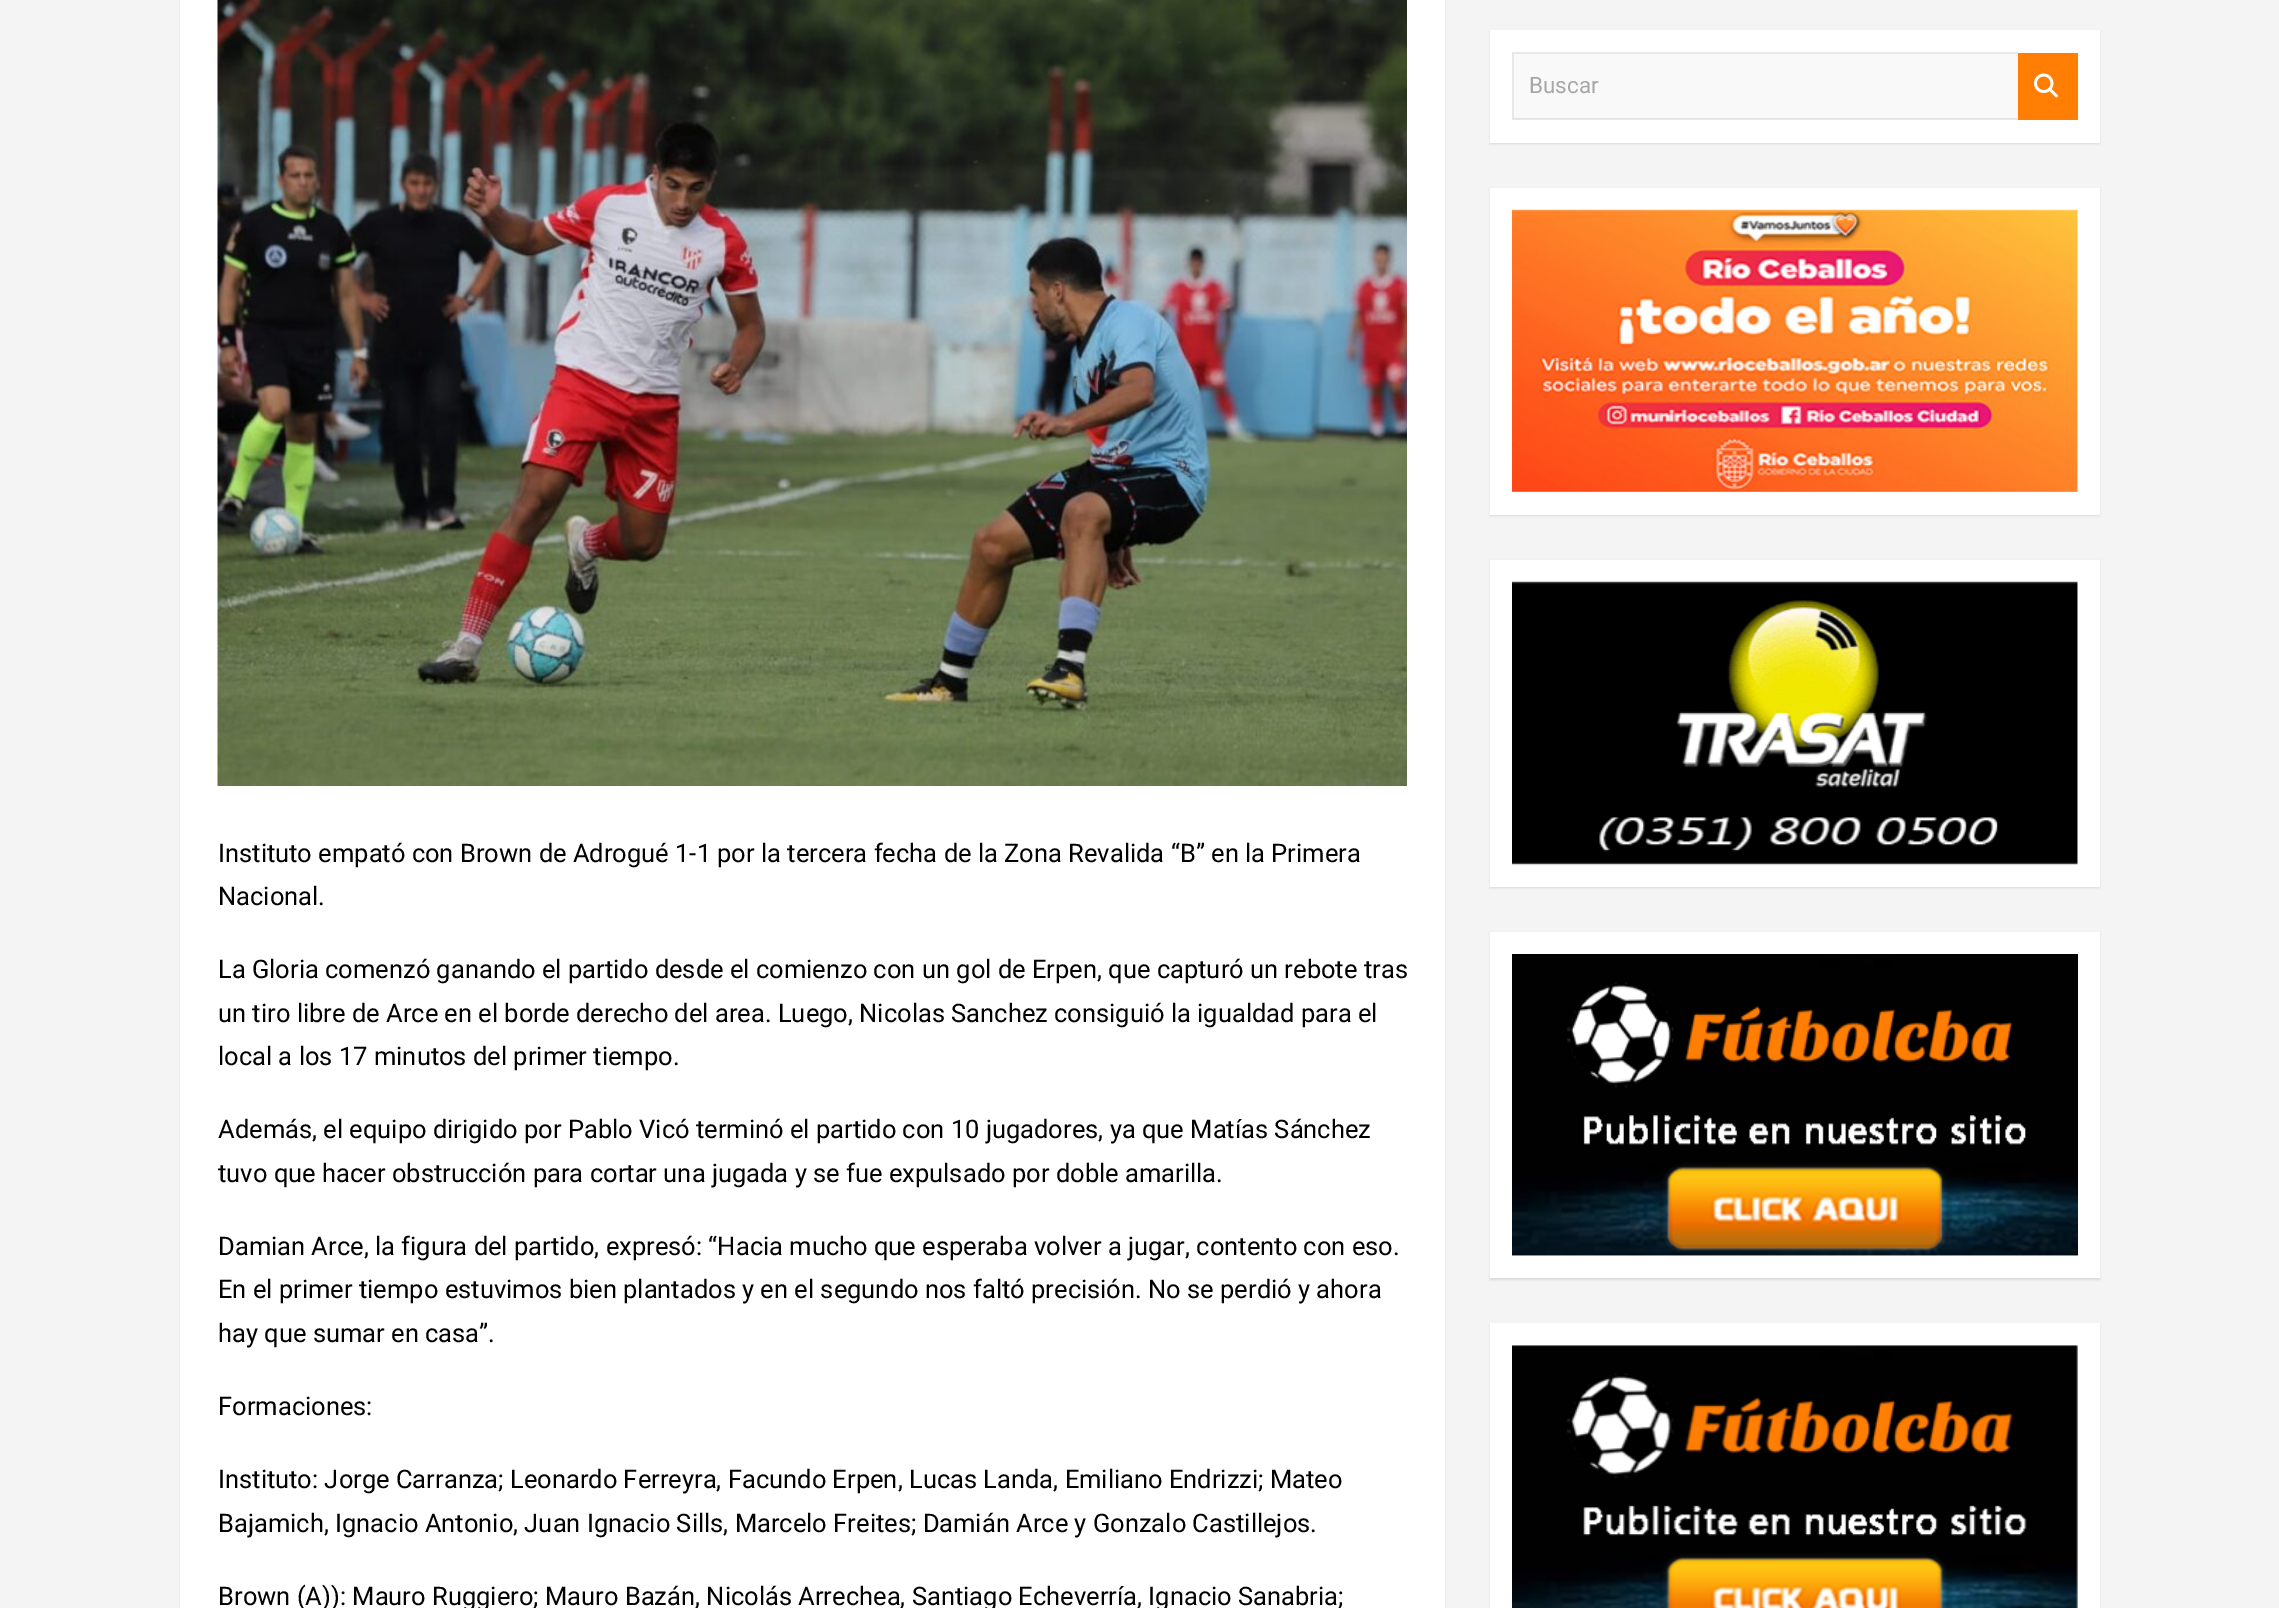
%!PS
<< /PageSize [2279 1608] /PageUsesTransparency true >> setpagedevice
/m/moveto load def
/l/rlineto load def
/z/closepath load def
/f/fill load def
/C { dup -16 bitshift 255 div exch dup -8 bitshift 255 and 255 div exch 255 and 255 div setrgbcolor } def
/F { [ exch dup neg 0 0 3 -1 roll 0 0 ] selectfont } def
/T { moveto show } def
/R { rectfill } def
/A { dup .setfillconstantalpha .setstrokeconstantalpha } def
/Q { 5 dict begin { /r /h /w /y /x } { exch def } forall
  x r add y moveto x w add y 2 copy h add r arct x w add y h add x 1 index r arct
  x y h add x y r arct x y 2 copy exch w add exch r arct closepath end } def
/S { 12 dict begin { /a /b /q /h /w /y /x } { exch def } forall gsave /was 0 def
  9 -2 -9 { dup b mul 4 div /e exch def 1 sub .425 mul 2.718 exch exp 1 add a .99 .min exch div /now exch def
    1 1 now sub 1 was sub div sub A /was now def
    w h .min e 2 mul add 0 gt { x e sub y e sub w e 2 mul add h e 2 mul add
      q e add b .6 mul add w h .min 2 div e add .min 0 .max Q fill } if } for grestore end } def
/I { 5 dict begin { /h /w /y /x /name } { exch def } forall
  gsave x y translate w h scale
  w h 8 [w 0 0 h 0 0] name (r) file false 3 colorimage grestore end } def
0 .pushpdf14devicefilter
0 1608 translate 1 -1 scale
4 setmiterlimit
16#F4F4F4 C
0 0 2279 1608 R
16#000000 C
1490 32 610 112 0 1 .1 S
16#FFFFFF C
1490 30 610 113 R
16#F9F9F9 C
1514 54 504 65 R
16#E8E8E8 C
1512 52 m 506 0 l 0 2 l -504 0 l z f
0.09 A
16#000000 C
2018 120 m -506 0 l 2 -2 l 504 0 l z f
1512 120 m 0 -68 l 2 2 l 0 64 l z f
/Roboto-Regular 22.5 F
1 A
16#A7A7A7 C
(Buscar) 1529 93 T
16#FF7E03 C
2018 53 60 67 R
(1.rgb) 2034 73 24 25 I
16#000000 C
1490 189 610 327 0 1 .1 S
16#FFFFFF C
1490 188 610 327 R
(2.rgb) 1512 209 566 283 I
16#000000 C
1490 561 610 327 0 1 .1 S
16#FFFFFF C
1490 560 610 327 R
(3.rgb) 1512 581 566 285 I
16#000000 C
1490 933 610 347 0 1 .1 S
16#FFFFFF C
1490 932 610 346 R
(4.rgb) 1512 954 566 302 I
16#000000 C
1490 1325 610 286 0 1 .1 S
16#FFFFFF C
1490 1323 610 285 R
(5.rgb) 1512 1345 566 263 I
16#000000 C
180 -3 1265 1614 0 1 .1 S
16#FFFFFF C
180 0 1265 1608 R
(6.rgb) 217 0 1190 786 I
/Roboto-Regular 25.5 F
16#000000 C
(Instituto empató con Brown de Adrogué 1-1 por la tercera fecha de la Zona Revalida “B” en la Primera) 218 862 T
(Nacional.) 218 905 T
(La Gloria comenzó ganando el partido desde el comienzo con un gol de Erpen, que capturó un rebote tras) 218 978 T
(un tiro libre de Arce en el borde derecho del area. Luego, Nicolas Sanchez consiguió la igualdad para el) 218 1022 T
(local a los 17 minutos del primer tiempo.) 218 1065 T
(Además, el equipo dirigido por Pablo Vicó terminó el partido con 10 jugadores, ya que Matías Sánchez) 218 1138 T
(tuvo que hacer obstrucción para cortar una jugada y se fue expulsado por doble amarilla.) 218 1182 T
(Damian Arce, la figura del partido, expresó: “Hacia mucho que esperaba volver a jugar, contento con eso.) 218 1255 T
(En el primer tiempo estuvimos bien plantados y en el segundo nos faltó precisión. No se perdió y ahora) 218 1298 T
(hay que sumar en casa”.) 218 1342 T
(Formaciones:) 218 1415 T
(Instituto: Jorge Carranza; Leonardo Ferreyra, Facundo Erpen, Lucas Landa, Emiliano Endrizzi; Mateo) 218 1488 T
(Bajamich, Ignacio Antonio, Juan Ignacio Sills, Marcelo Freites; Damián Arce y Gonzalo Castillejos.) 218 1532 T
(Brown \(A\)\): Mauro Ruggiero; Mauro Bazán, Nicolás Arrechea, Santiago Echeverría, Ignacio Sanabria;) 218 1605 T
.poppdf14devicefilter showpage
